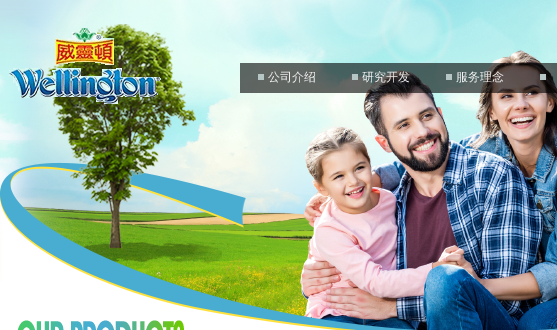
%!PS
<< /PageSize [557 330] /PageUsesTransparency true >> setpagedevice
/C { dup -16 bitshift 255 div exch dup -8 bitshift 255 and 255 div exch 255 and 255 div setrgbcolor } def
/F { [ exch dup neg 0 0 3 -1 roll 0 0 ] selectfont } def
/T { moveto show } def
/R { rectfill } def
/A { dup .setfillconstantalpha .setstrokeconstantalpha } def
/I { 5 dict begin { /h /w /y /x /name } { exch def } forall
  gsave x y translate w h scale
  w h 8 [w 0 0 h 0 0] name (r) file false 3 colorimage grestore end } def
0 .pushpdf14devicefilter
0 330 translate 1 -1 scale
4 setmiterlimit
16#FFFFFF C
0 0 557 330 R
(1.rgb) 0 0 85 226 I
(2.rgb) 0 0 557 330 I
(3.rgb) 9 28 152 76 I
0.6 A
16#000000 C
240 63 317 30 R
1 A
16#B5C6C5 C
258 74 6 6 R
/WenQuanYiZenHei-Medium 12 F
16#F0F0F0 C
(公司介绍) 268 81 T
16#B5C6C5 C
352 74 6 6 R
16#F0F0F0 C
(研究开发) 362 81 T
16#B5C6C5 C
446 74 6 6 R
16#F0F0F0 C
(服务理念) 456 81 T
16#B5C6C5 C
540 74 6 6 R
(4.rgb) 17 320 167 10 I
.poppdf14devicefilter showpage
